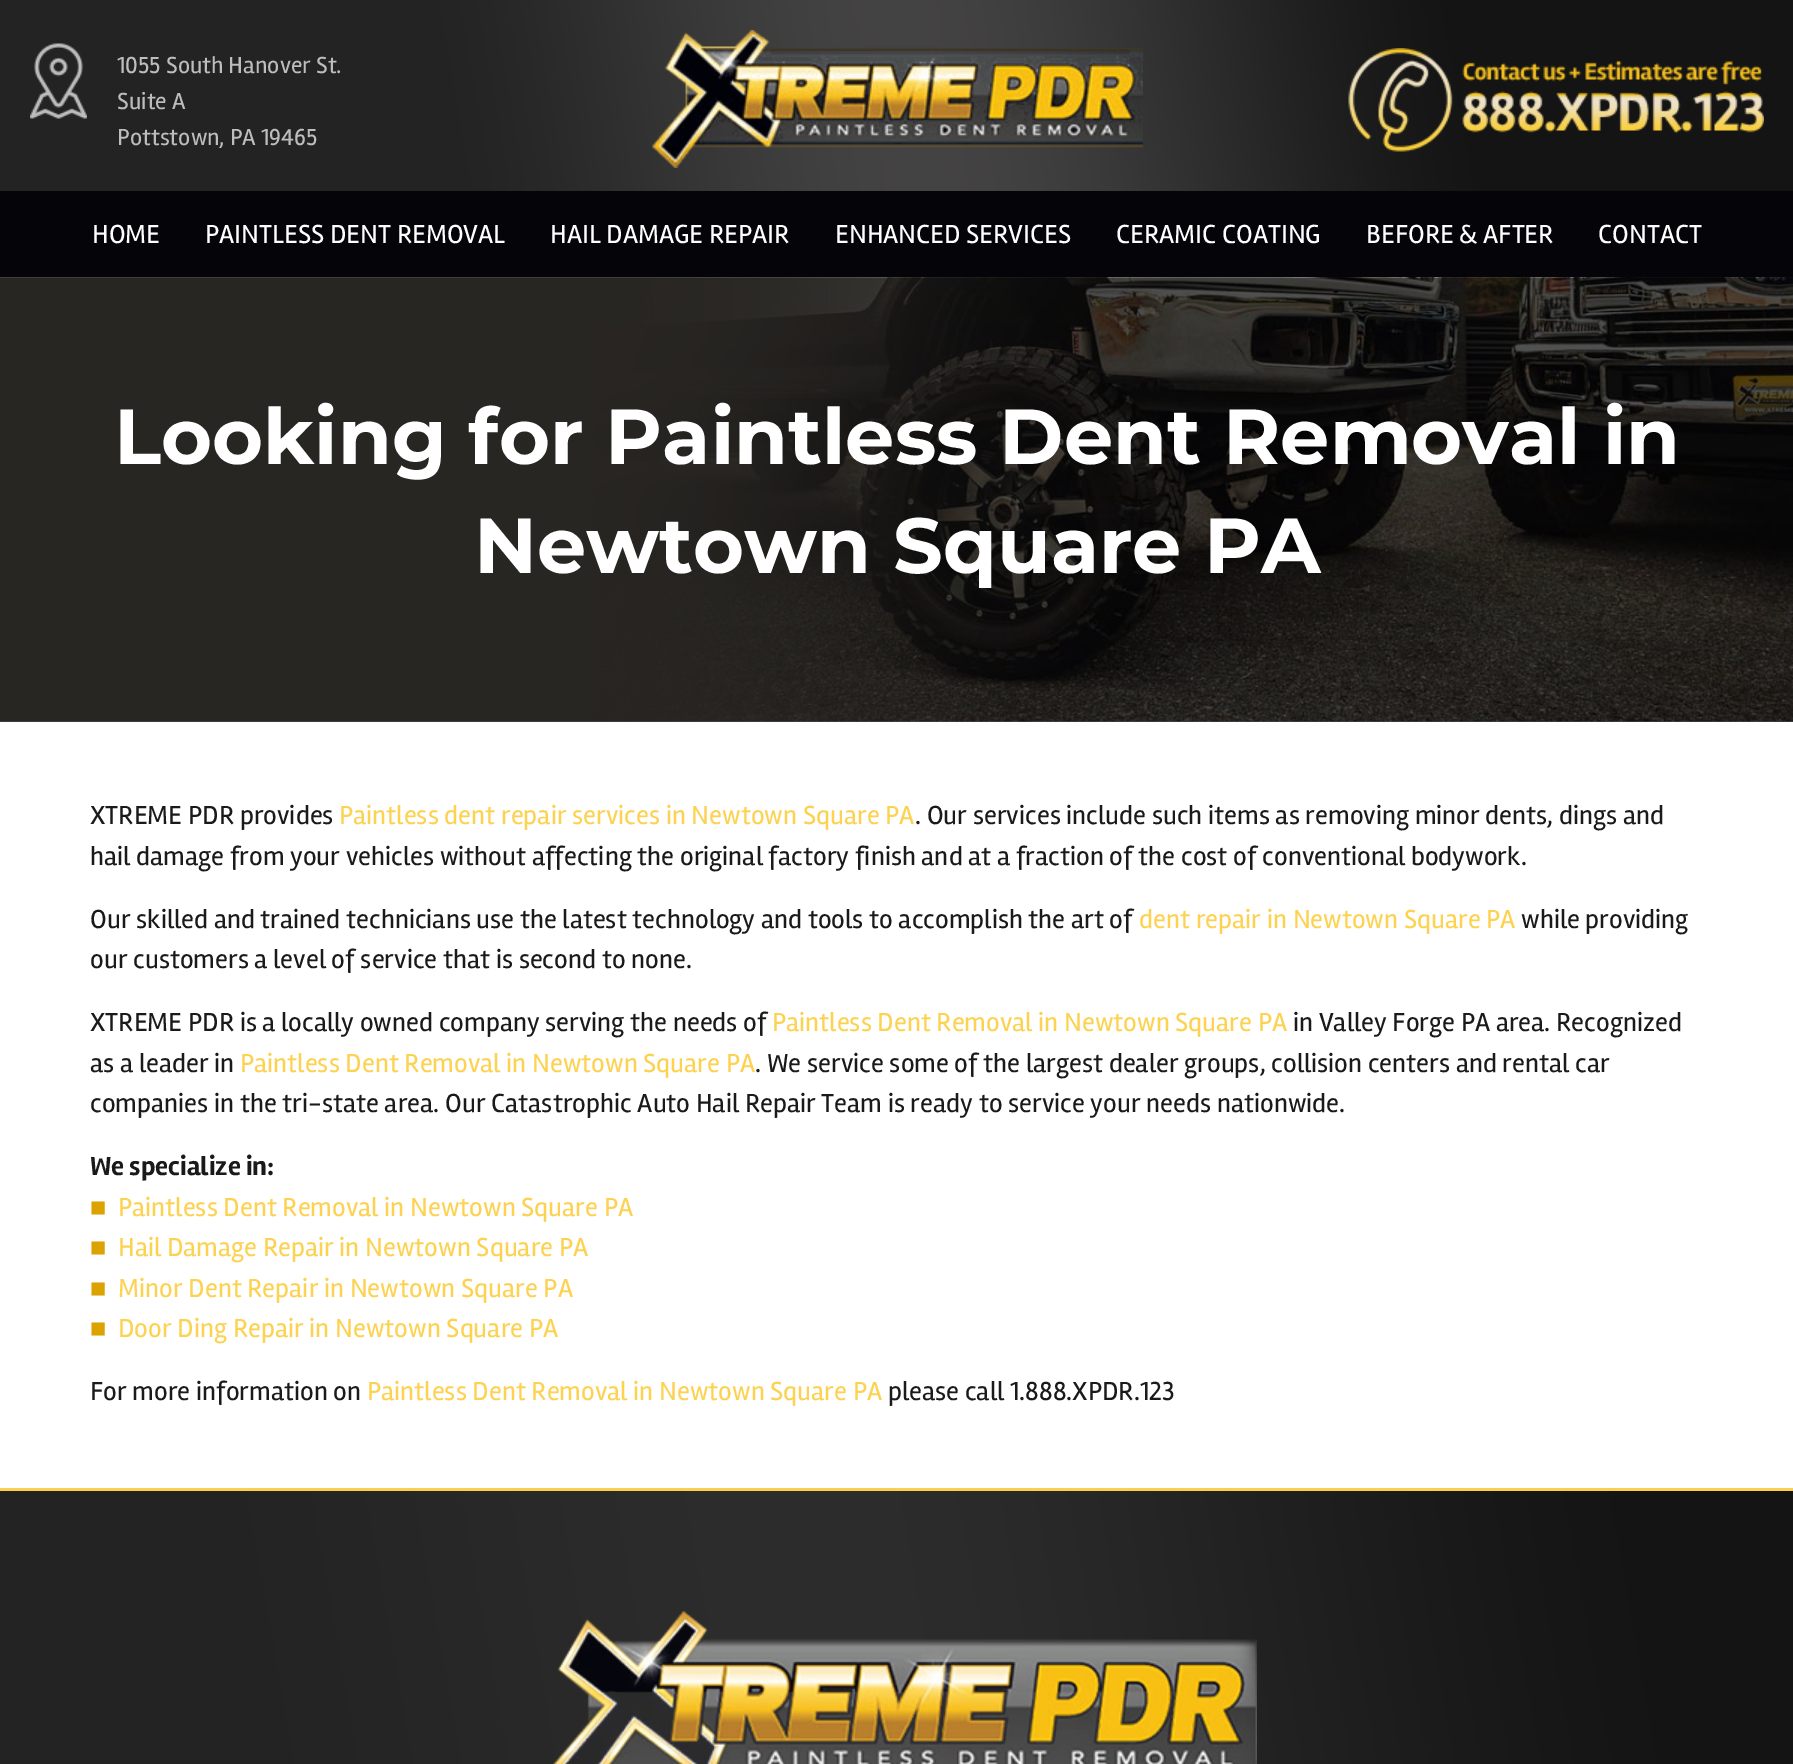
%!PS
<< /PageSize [1793 1764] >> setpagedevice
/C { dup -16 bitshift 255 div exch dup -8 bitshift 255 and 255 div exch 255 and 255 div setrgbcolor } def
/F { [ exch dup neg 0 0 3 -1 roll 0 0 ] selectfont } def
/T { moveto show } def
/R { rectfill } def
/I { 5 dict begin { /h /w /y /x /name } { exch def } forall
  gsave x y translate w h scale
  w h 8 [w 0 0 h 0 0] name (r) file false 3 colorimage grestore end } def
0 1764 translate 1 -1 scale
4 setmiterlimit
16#FFFFFF C
0 0 1793 1764 R
(1.rgb) 0 0 1793 191 I
(2.rgb) 30 43 57 76 I
/Rambla-Regular 24 F
16#BDBDBD C
(1055 South Hanover St.) 117 73 T
(Suite A) 117 109 T
(Pottstown, PA 19465) 117 145 T
(3.rgb) 652 30 491 138 I
(4.rgb) 1348 48 416 104 I
16#050509 C
0 191 1793 87 R
/Rambla-Regular 27 F
16#FFFFFF C
(HOME) 92 243 T
(PAINTLESS DENT REMOVAL) 205 243 T
(HAIL DAMAGE REPAIR) 550 243 T
(ENHANCED SERVICES) 835 243 T
(CERAMIC COATING) 1116 243 T
(BEFORE & AFTER) 1366 243 T
(CONTACT) 1598 243 T
16#525252 C
0 721 1793 1 R
(5.rgb) 0 277 1793 445 I
/Montserrat-Bold 78 F
16#FFFFFF C
(Looking for Paintless Dent Removal in) 114 464 T
(Newtown Square PA) 474 573 T
/Rambla-Regular 27 F
16#1A1A1A C
(XTREME PDR provides) 90 824 T
16#FDD250 C
(Paintless dent repair services in Newtown Square PA) 339 824 T
16#1A1A1A C
(. Our services include such items as removing minor dents, dings and) 915 824 T
(hail damage from your vehicles without affecting the original factory finish and at a fraction of the cost of conventional bodywork.) 90 865 T
(Our skilled and trained technicians use the latest technology and tools to accomplish the art of) 90 928 T
16#FDD250 C
(dent repair in Newtown Square PA) 1139 928 T
16#1A1A1A C
(while providing) 1521 928 T
(our customers a level of service that is second to none.) 90 968 T
(XTREME PDR is a locally owned company serving the needs of) 90 1031 T
16#FDD250 C
(Paintless Dent Removal in Newtown Square PA) 772 1031 T
16#1A1A1A C
(in Valley Forge PA area. Recognized) 1293 1031 T
(as a leader in) 90 1072 T
16#FDD250 C
(Paintless Dent Removal in Newtown Square PA) 240 1072 T
16#1A1A1A C
(. We service some of the largest dealer groups, collision centers and rental car) 755 1072 T
(companies in the tri-state area. Our Catastrophic Auto Hail Repair Team is ready to service your needs nationwide.) 90 1112 T
/Rambla-Bold 27 F
(We specialize in:) 90 1175 T
/LiberationSans-Regular 27 F
16#DCA300 C
(■) 90 1216 T
/Rambla-Regular 27 F
16#FDD250 C
(Paintless Dent Removal in Newtown Square PA) 118 1216 T
/LiberationSans-Regular 27 F
16#DCA300 C
(■) 90 1256 T
/Rambla-Regular 27 F
16#FDD250 C
(Hail Damage Repair in Newtown Square PA) 118 1256 T
/LiberationSans-Regular 27 F
16#DCA300 C
(■) 90 1297 T
/Rambla-Regular 27 F
16#FDD250 C
(Minor Dent Repair in Newtown Square PA) 118 1297 T
/LiberationSans-Regular 27 F
16#DCA300 C
(■) 90 1337 T
/Rambla-Regular 27 F
16#FDD250 C
(Door Ding Repair in Newtown Square PA) 118 1337 T
16#1A1A1A C
(For more information on) 90 1400 T
16#FDD250 C
(Paintless Dent Removal in Newtown Square PA) 367 1400 T
16#1A1A1A C
(please call 1.888.XPDR.123) 888 1400 T
(6.rgb) 0 1491 1793 273 I
16#FCCF50 C
0 1488 1793 3 R
(7.rgb) 553 1611 704 153 I
showpage
